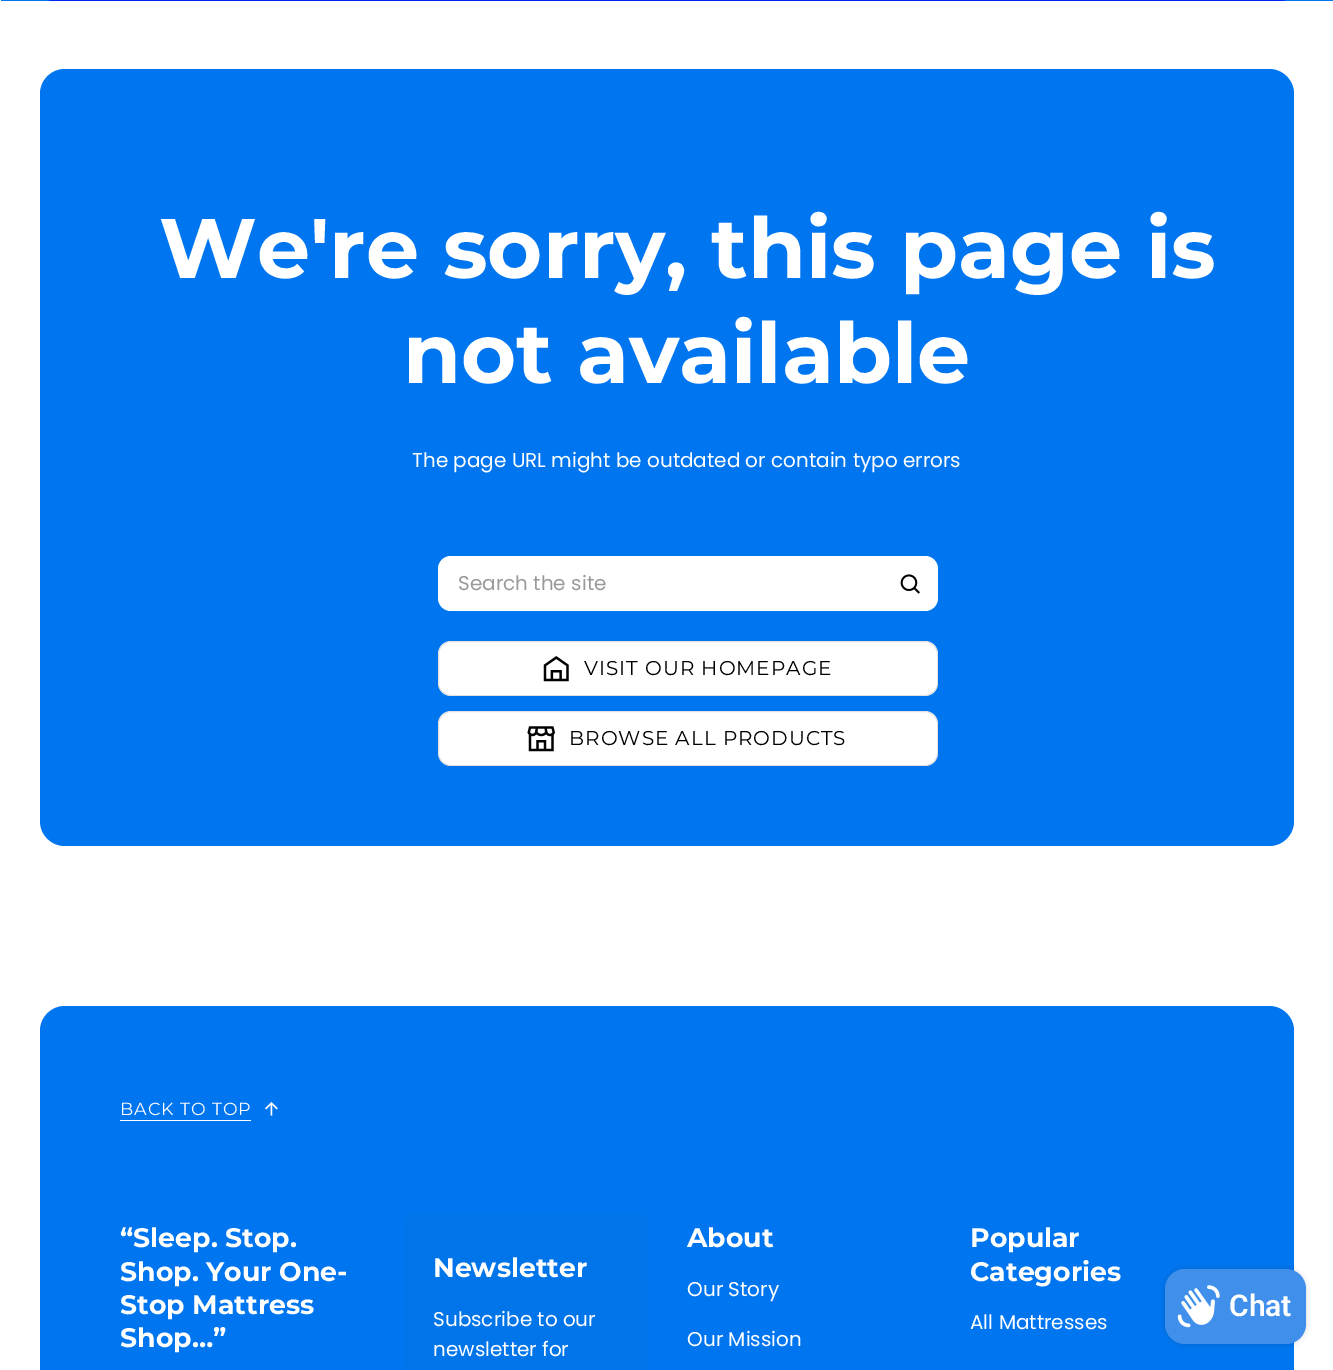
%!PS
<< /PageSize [1333 1370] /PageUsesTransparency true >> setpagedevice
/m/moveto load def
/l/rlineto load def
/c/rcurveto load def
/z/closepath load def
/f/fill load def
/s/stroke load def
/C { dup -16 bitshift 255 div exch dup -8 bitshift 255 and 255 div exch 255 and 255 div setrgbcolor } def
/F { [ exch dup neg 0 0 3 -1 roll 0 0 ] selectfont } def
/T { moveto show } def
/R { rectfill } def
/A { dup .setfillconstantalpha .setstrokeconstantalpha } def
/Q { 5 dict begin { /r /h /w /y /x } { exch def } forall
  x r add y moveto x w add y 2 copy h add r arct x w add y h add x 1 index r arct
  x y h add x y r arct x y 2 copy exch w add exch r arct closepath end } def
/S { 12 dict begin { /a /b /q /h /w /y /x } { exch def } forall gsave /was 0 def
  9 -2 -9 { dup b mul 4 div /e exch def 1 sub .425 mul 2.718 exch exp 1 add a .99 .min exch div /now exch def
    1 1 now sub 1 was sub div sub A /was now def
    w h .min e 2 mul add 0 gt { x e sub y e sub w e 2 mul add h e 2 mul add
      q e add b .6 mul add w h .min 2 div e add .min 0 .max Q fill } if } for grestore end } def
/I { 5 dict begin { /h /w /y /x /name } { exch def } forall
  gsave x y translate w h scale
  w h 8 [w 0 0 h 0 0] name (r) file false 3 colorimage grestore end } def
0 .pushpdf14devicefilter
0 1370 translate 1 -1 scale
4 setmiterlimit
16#FFFFFF C
0 0 1333 1370 R
16#0075F0 C
1 0 1332 1 R
16#0024F4 C
40 -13 m 1254 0 l 0 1 l 0 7 -6 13 -13 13 c -1228 0 l -7 0 -13 -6 -13 -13 c z f
16#0075F0 C
40 69 1254 777 25 Q f
/Montserrat-Bold 84.2 F
16#FFFFFF C
(We're sorry, this page is) 159 278 T
(not available) 403 383 T
/Poppins-Regular 20 F
(The page URL might be outdated or contain typo errors) 412 467 T
438 556 500 55 13 Q f
0.12 A
438.5 556.5 499 54 12.5 Q s
1 A
16#999999 C
(Search the site) 458 590 T
(1.rgb) 900 574 20 20 I
16#FFFFFF C
438 641 500 55 13 Q f
0.12 A
16#000000 C
438.5 641.5 499 54 12.5 Q s
1 A
(2.rgb) 543 656 26 26 I
/Montserrat-Regular 20 F
584 675 m 1 0 (VISIT OUR HOMEPAGE) ashow
16#FFFFFF C
438 711 500 55 13 Q f
0.12 A
16#000000 C
438.5 711.5 499 54 12.5 Q s
1 A
(3.rgb) 527 726 28 26 I
569 745 m 1 0 (BROWSE ALL PRODUCTS) ashow
16#0075F0 C
40 1006 1254 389 25 Q f
/Montserrat-Regular 17.5 F
16#FFFFFF C
120 1115 m .9 0 (BACK TO TOP) ashow
120 1120 131 1 R
(4.rgb) 265 1102 13 14 I
/Montserrat-Bold 26.75 F
(“Sleep. Stop.) 120 1247 T
(Shop. Your One-) 120 1281 T
(Stop Mattress) 120 1314 T
(Shop…”) 120 1347 T
16#0074E9 C
404 1211 244 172 13 Q f
16#FFFFFF C
(Newsletter) 433 1277 T
/Poppins-Regular 20 F
(Subscribe to our) 433 1326 T
(newsletter for) 433 1356 T
/Montserrat-Bold 26.75 F
(About) 687 1247 T
/Poppins-Regular 20 F
(Our Story) 687 1296 T
(Our Mission) 687 1346 T
/Montserrat-Bold 26.75 F
(Popular) 970 1247 T
(Categories) 970 1281 T
/Poppins-Regular 20 F
(All Mattresses) 970 1329 T
16#000000 C
1165 1269 141 75 20 3 .15 S
16#408FEA C
1165 1269 141 75 20 Q f
(5.rgb) 1177 1285 43 43 I
/Roboto-SemiBold 30 F
16#FFFFFF C
(Chat) 1229 1316 T
.poppdf14devicefilter showpage
